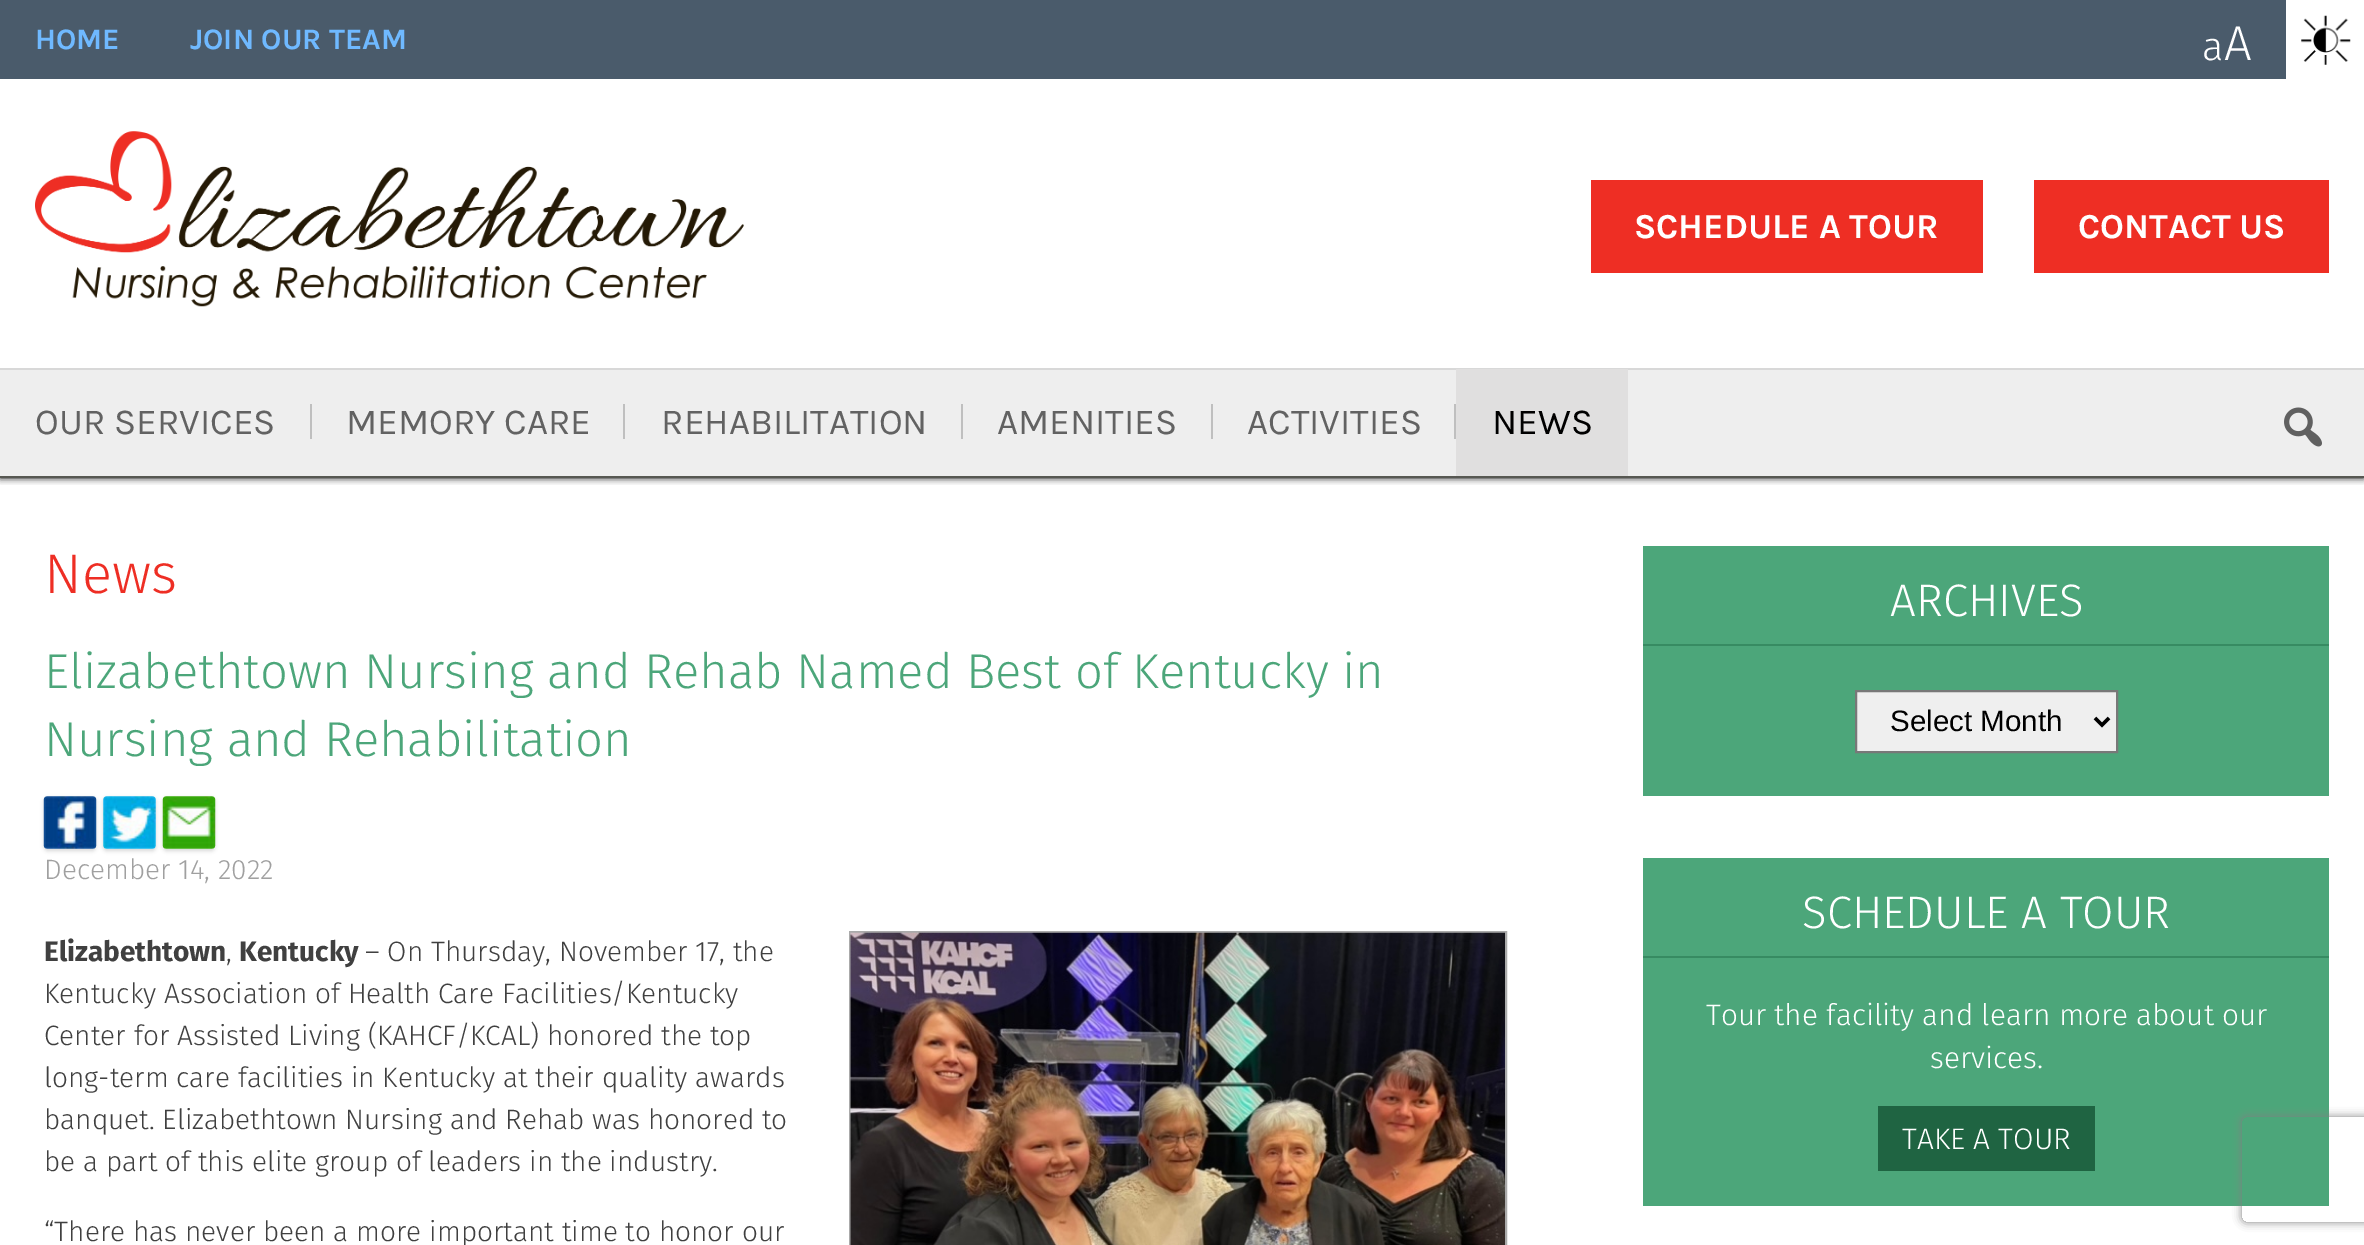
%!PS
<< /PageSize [2364 1245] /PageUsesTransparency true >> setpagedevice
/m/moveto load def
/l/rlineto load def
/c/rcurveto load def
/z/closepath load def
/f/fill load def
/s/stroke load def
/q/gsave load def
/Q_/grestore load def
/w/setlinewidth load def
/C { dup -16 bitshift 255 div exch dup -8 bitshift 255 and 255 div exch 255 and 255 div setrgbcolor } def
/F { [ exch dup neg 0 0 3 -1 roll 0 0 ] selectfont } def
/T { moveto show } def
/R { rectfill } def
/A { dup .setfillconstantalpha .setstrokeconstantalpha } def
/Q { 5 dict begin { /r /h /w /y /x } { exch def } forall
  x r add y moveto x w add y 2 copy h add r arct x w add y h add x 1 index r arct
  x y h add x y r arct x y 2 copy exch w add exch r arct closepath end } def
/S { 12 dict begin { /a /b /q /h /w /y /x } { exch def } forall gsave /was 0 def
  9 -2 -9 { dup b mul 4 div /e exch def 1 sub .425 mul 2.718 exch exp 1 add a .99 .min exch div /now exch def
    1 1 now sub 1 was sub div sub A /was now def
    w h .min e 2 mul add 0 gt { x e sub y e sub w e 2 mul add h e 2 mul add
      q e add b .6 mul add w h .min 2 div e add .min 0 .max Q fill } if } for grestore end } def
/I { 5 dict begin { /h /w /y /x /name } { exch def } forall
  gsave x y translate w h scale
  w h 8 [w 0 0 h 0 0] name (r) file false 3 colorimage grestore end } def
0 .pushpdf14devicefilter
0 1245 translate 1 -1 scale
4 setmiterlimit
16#FFFFFF C
0 0 2364 1245 R
q
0 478 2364 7 rectclip
16#000000 C
0 2 2364 476 0 3.5 1 S
Q_
16#4A5B6B C
0 0 2286 79 R
/Karla-Bold 29.75 F
16#6FB9FF C
(HOME) 35 49 T
(JOIN OUR TEAM) 190 49 T
/FiraSans-Light 40 F
16#FFFFFF C
(a) 2202 60 T
/FiraSans-Light 49 F
(A) 2224 60 T
(1.rgb) 2301 15 50 50 I
(2.rgb) 35 131 709 176 I
16#EE2E24 C
1591 180 392 93 R
/Karla-Bold 35 F
16#FFFFFF C
(SCHEDULE A TOUR) 1634 238 T
16#EE2E24 C
2034 180 295 93 R
16#FFFFFF C
(CONTACT US) 2078 238 T
16#EEEEEE C
0 370 2364 106 R
16#D8D8D8 C
0 368 2364 2 R
16#575852 C
0 476 2364 2 R
/Karla-Regular 36.75 F
16#626262 C
(OUR SERVICES) 35 434 T
16#BFBFBF C
310 404 2 35 R
16#626262 C
(MEMORY CARE) 346 434 T
16#BFBFBF C
623 404 2 35 R
16#626262 C
(REHABILITATION) 661 434 T
16#BFBFBF C
961 404 2 35 R
16#626262 C
(AMENITIES) 997 434 T
16#BFBFBF C
1211 404 2 35 R
16#626262 C
(ACTIVITIES) 1247 434 T
16#BFBFBF C
1454 404 2 35 R
16#E0DFDF C
1456 369 172 107 R
16#000000 C
(NEWS) 1492 434 T
(3.rgb) 2284 407 38 40 I
/FiraSans-Light 56 F
16#EE2E24 C
(News) 44 593 T
/FiraSans-Light 49 F
16#4CA67A C
(Elizabethtown Nursing and Rehab Named Best of Kentucky in) 44 688 T
(Nursing and Rehabilitation) 44 756 T
16#000000 C
44 798 52 53 4 2 .15 S
(4.rgb) 43 796 54 53 I
103 798 53 53 4 2 .15 S
(5.rgb) 103 796 53 53 I
163 798 52 53 4 2 .15 S
(6.rgb) 162 796 54 53 I
/FiraSans-Light 28 F
16#A0A0A0 C
(December 14, 2022) 44 879 T
/FiraSans-Bold 28 F
16#404040 C
(Elizabethtown) 44 961 T
/FiraSans-Light 28 F
(,) 226 961 T
/FiraSans-Bold 28 F
(Kentucky) 239 961 T
/FiraSans-Light 28 F
(– On Thursday, November 17, the) 365 961 T
(Kentucky Association of Health Care Facilities/Kentucky) 44 1003 T
(Center for Assisted Living \(KAHCF/KCAL\) honored the top) 44 1045 T
(long-term care facilities in Kentucky at their quality awards) 44 1087 T
(banquet. Elizabethtown Nursing and Rehab was honored to) 44 1129 T
(be a part of this elite group of leaders in the industry.) 44 1171 T
16#AAAAAA C
2 w
850 932 656 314 rectstroke
(7.rgb) 850 932 655 313 I
16#404040 C
(“There has never been a more important time to honor our) 44 1241 T
16#4CA67A C
1643 546 686 250 R
16#378B62 C
1643 644 686 2 R
/FiraSans-Light 45.5 F
16#FFFFFF C
(ARCHIVES) 1890 616 T
16#EFEFEF C
1856 691 m 261 0 l 0 61 l -261 0 l z q f Q_
16#787878 C
s
16#000000 C
3.5 w
2095 718 m 7 7 l 7 -7 l s
/LiberationSans-Regular 29.5 F
(Select Month) 1890 731 T
16#4CA67A C
1643 858 686 348 R
16#378B62 C
1643 956 686 2 R
/FiraSans-Light 45.5 F
16#FFFFFF C
(SCHEDULE A TOUR) 1802 928 T
/FiraSans-Light 29.75 F
(Tour the facility and learn more about our) 1706 1025 T
(services.) 1930 1068 T
16#1F6442 C
1878 1106 217 65 R
16#FFFFFF C
(TAKE A TOUR) 1902 1149 T
q
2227 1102 m 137 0 l 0 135 l -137 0 l z 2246 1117 m 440 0 l 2 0 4 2 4 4 c 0 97 l 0 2 -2 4 -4 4 c -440 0 l -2 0 -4 -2 -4 -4 c 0 -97 l 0 -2 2 -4 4 -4 c z eoclip newpath
16#808080 C
2242 1117 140 105 4 4.5 1 S
Q_
.poppdf14devicefilter showpage
